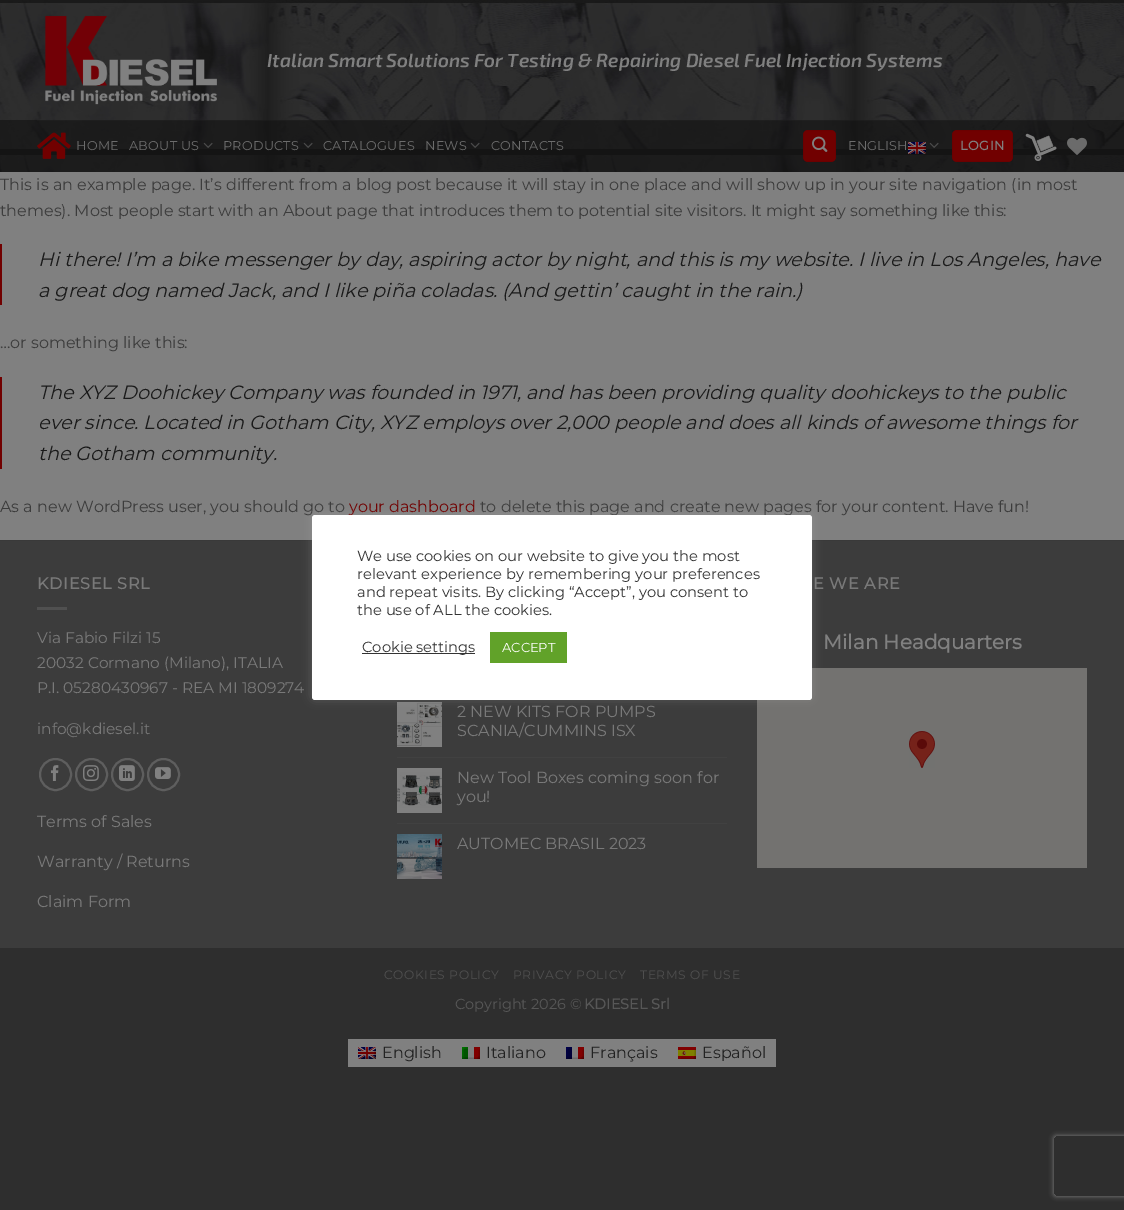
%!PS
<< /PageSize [1124 1210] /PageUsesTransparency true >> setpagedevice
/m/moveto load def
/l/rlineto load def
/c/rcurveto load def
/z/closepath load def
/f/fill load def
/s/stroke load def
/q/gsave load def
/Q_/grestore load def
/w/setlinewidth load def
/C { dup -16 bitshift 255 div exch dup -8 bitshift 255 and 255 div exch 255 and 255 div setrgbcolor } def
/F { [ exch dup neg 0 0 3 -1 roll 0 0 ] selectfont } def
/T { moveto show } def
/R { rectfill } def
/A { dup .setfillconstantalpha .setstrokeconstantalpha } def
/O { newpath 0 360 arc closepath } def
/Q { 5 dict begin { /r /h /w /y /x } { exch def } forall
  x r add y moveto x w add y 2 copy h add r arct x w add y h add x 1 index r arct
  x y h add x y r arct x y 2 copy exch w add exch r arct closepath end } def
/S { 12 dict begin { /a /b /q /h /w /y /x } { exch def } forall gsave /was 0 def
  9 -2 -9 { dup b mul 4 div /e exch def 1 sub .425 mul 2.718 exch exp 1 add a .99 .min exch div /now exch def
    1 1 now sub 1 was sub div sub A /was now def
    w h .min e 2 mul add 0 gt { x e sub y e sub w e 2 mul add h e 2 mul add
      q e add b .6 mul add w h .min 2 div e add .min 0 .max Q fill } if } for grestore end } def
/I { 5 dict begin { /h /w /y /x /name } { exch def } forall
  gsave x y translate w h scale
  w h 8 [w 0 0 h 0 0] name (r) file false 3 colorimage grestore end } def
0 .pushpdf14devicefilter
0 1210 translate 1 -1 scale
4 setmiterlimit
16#2E2E2E C
0 0 1124 1210 R
16#808080 C
0 172 1124 368 R
(1.rgb) 0 0 1124 172 I
(2.rgb) 45 15 172 90 I
/Exo2-SemiBoldItalic 19 F
(Italian Smart Solutions For Testing & Repairing Diesel Fuel Injection Systems) 267 67 T
0.61 A
16#111111 C
0 120 1124 52 R
0.1 A
16#3C3C3C C
37 120 1050 1 R
1 A
(3.rgb) 37 132 34 27 I
/Montserrat-Thin 12.75 F
16#6C6C6C C
76 150 m .25 0 (HOME) ashow
129 150 m .25 0 (ABOUT US) ashow
(4.rgb) 203 142 10 6 I
223 150 m .25 0 (PRODUCTS) ashow
(5.rgb) 303 142 10 6 I
323 150 m .25 0 (CATALOGUES) ashow
425 150 m .25 0 (NEWS) ashow
(6.rgb) 470 142 10 6 I
491 150 m .25 0 (CONTACTS) ashow
16#710000 C
803 130 33 32 5 Q f
0.05 A
16#000000 C
803.5 130.5 32 31 rectstroke
1 A
(7.rgb) 812 136 16 16 I
16#6C6C6C C
848 150 m .25 0 (ENGLISH) ashow
(8.rgb) 908 142 18 12 I
(9.rgb) 929 142 10 6 I
16#710000 C
952 130 61 32 5 Q f
0.05 A
16#000000 C
952.5 130.5 60 31 rectstroke
/Montserrat-Bold 12.75 F
1 A
16#808080 C
960 150 m .5 0 (LOGIN) ashow
(10.rgb) 1025 133 32 28 I
(11.rgb) 1067 137 20 18 I
/Montserrat-Thin 16 F
16#3C3C3C C
(This is an example page. It’s different from a blog post because it will stay in one place and will show up in your site navigation \(in most) 0 190 T
(themes\). Most people start with an About page that introduces them to potential site visitors. It might say something like this:) 0 216 T
16#710000 C
0 244 2 61 R
/Montserrat-ThinItalic 19.2 F
16#1A1A1A C
(Hi there! I’m a bike messenger by day, aspiring actor by night, and this is my website. I live in Los Angeles, have) 38 266 T
(a great dog named Jack, and I like piña coladas. \(And gettin’ caught in the rain.\)) 38 297 T
/Montserrat-Thin 16 F
16#3C3C3C C
(…or something like this:) 0 348 T
16#710000 C
0 377 2 92 R
/Montserrat-ThinItalic 19.2 F
16#1A1A1A C
(The XYZ Doohickey Company was founded in 1971, and has been providing quality doohickeys to the public) 38 399 T
(ever since. Located in Gotham City, XYZ employs over 2,000 people and does all kinds of awesome things for) 38 429 T
(the Gotham community.) 38 460 T
/Montserrat-Thin 16 F
16#3C3C3C C
(As a new WordPress user, you should go to) 0 512 T
16#710000 C
(your dashboard) 349 512 T
16#3C3C3C C
(to delete this page and create new pages for your content. Have fun!) 480 512 T
0 541 1124 407 R
16#393939 C
0 540 1124 1 R
/Montserrat-Bold 16 F
16#797979 C
37 589 m .75 0 (KDIESEL SRL) ashow
16#505050 C
37 607 30 3 R
/Montserrat-Thin 15.4 F
16#797979 C
(Via Fabio Filzi 15) 37 643 T
(20032 Cormano \(Milano\), ITALIA) 37 668 T
(P.I. 05280430967 - REA MI 1809274) 37 693 T
(info@kdiesel.it) 37 734 T
16#5E5E5E C
2 w
55.5 774.5 15.5 O s
(12.rgb) 50 765 9 16 I
91.5 774.5 15.5 O s
(13.rgb) 83 765 16 16 I
127.5 774.5 15.5 O s
(14.rgb) 119 765 16 16 I
163.5 774.5 15.5 O s
(15.rgb) 155 767 16 12 I
/Montserrat-Thin 16 F
16#797979 C
(Terms of Sales) 37 827 T
(Warranty / Returns) 37 867 T
(Claim Form) 37 907 T
/Montserrat-Bold 16 F
813 589 m .75 0 (E WE ARE) ashow
/Montserrat-Bold 20 F
16#808080 C
(Milan Headquarters) 823 649 T
16#737270 C
757 668 330 200 R
(16.rgb) 909 731 26 37 I
(17.rgb) 397 702 45 45 I
/Montserrat-Thin 16 F
16#797979 C
(2 NEW KITS FOR PUMPS) 457 717 T
(SCANIA/CUMMINS ISX) 457 736 T
16#414141 C
397 757 330 1 R
(18.rgb) 397 768 45 45 I
16#797979 C
(New Tool Boxes coming soon for) 457 783 T
(you!) 457 802 T
16#414141 C
397 823 330 1 R
(19.rgb) 397 834 45 45 I
16#797979 C
(AUTOMEC BRASIL 2023) 457 849 T
/Montserrat-Thin 12.25 F
16#4F4F4F C
384 979 m .6 0 (COOKIES POLICY) ashow
513 979 m .6 0 (PRIVACY POLICY) ashow
640 979 m .6 0 (TERMS OF USE) ashow
/Montserrat-Thin 14.5 F
16#575757 C
(Copyright 2026 ©) 455 1009 T
/Montserrat-Bold 14.5 F
(KDIESEL Srl) 584 1009 T
16#ACABAB C
312 514 500 185 3 5 .3 S
16#FFFFFF C
312 515 500 185 3 Q f
/Montserrat-Thin 14.7 F
16#333333 C
(We use cookies on our website to give you the most) 357 561 T
(relevant experience by remembering your preferences) 357 579 T
(and repeat visits. By clicking “Accept”, you consent to) 357 597 T
(the use of ALL the cookies.) 357 615 T
362 653 113 1 R
(Cookie settings) 362 652 T
16#61A229 C
490 632 77 31 R
/Montserrat-Thin 13 F
16#FFFFFF C
(ACCEPT) 502 652 T
16#808080 C
348 1039 428 28 R
(8.rgb) 358 1047 18 12 I
/Montserrat-Thin 16 F
16#222222 C
(English) 382 1058 T
(20.rgb) 462 1047 18 12 I
(Italiano) 486 1058 T
(21.rgb) 566 1047 18 12 I
(Français) 590 1058 T
(22.rgb) 678 1047 18 12 I
(Español) 702 1058 T
q
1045 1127 m 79 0 l 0 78 l -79 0 l z 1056 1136 m 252 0 l 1 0 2 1 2 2 c 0 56 l 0 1 -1 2 -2 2 c -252 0 l -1 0 -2 -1 -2 -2 c 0 -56 l 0 -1 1 -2 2 -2 c z eoclip newpath
16#808080 C
1054 1136 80 60 2 2.5 1 S
Q_
.poppdf14devicefilter showpage
